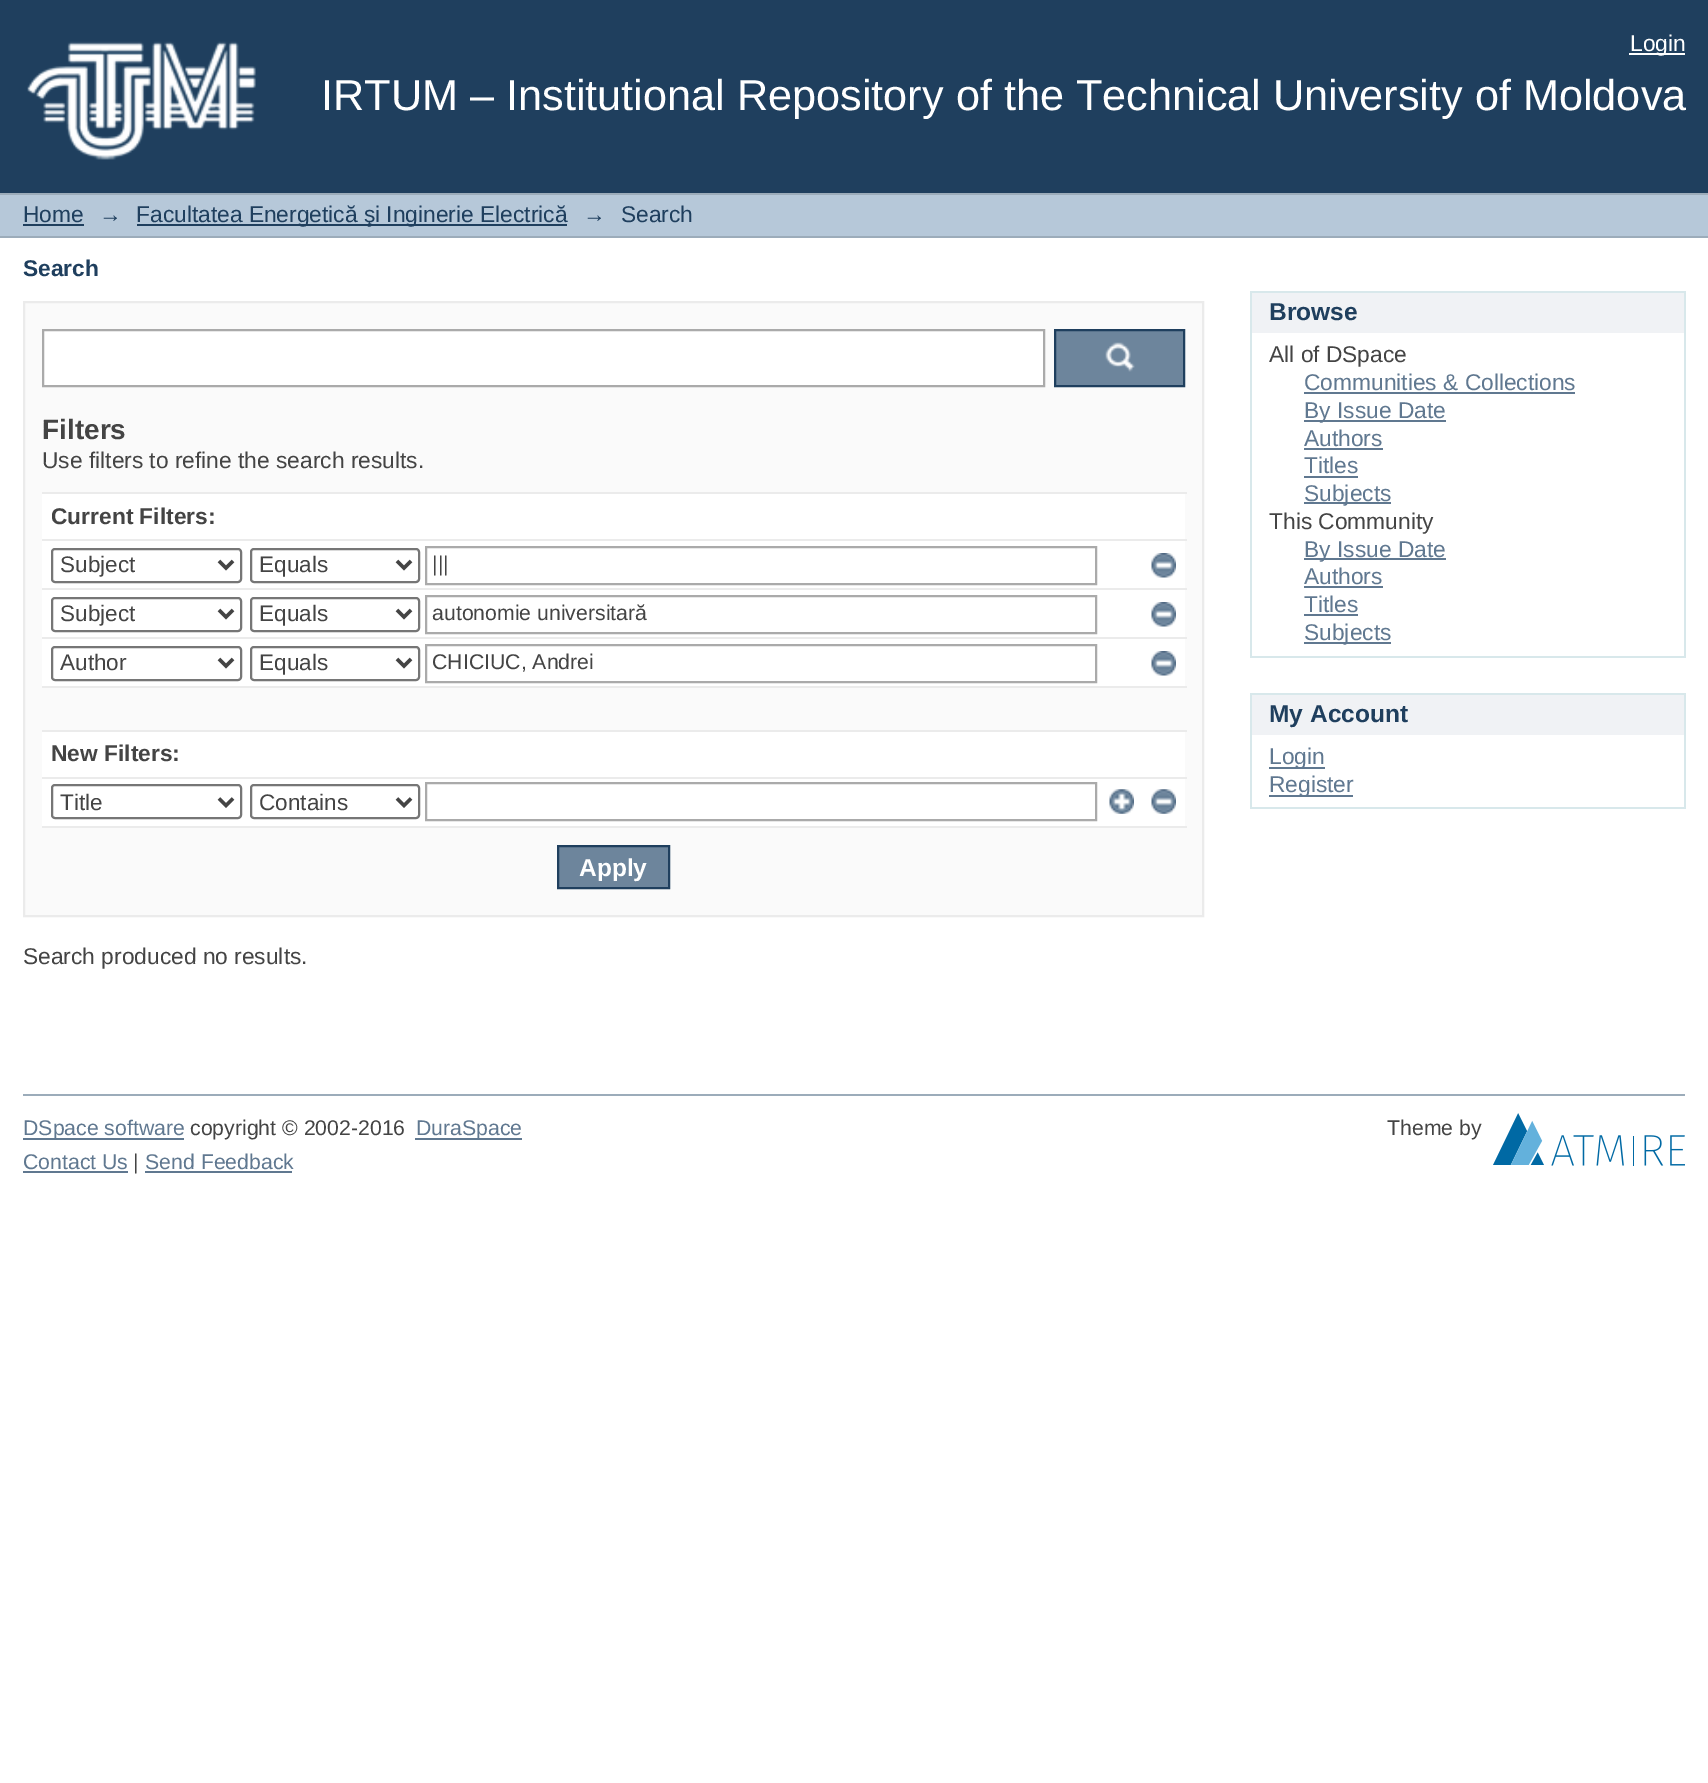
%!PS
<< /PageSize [1708 1783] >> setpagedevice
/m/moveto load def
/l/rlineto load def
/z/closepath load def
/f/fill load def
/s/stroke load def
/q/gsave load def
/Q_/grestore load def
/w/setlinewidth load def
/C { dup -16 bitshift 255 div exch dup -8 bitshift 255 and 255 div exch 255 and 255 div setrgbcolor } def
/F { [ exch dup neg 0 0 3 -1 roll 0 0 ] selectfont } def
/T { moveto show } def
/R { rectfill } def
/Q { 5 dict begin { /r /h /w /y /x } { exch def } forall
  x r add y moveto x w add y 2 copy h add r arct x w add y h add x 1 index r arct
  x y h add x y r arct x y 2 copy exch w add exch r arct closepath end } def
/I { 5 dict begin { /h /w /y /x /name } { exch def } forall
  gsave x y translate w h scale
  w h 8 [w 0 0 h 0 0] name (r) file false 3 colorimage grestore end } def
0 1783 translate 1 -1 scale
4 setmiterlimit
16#FFFFFF C
0 0 1708 1783 R
16#1F3F5E C
0 0 1708 193 R
16#FFFFFF C
1629 53 56 2 R
/LiberationSans-Regular 22.75 F
(Login) 1630 51 T
(1.rgb) 27 41 229 119 I
/LiberationSans-Regular 43.25 F
(IRTUM – Institutional Repository of the Technical University of Moldova) 321 110 T
16#B6C8D9 C
0 195 1708 41 R
16#9CACBA C
0 193 1708 2 R
0 236 1708 2 R
/LiberationSans-Regular 22.75 F
16#1F3F5E C
(Home) 23 222 T
23 224 61 2 R
(→) 99 222 T
137 224 430 2 R
(Facultatea Energetică şi Inginerie Electrică) 136 222 T
(→) 583 222 T
(Search) 621 222 T
/LiberationSans-Bold 22.75 F
(Search) 23 276 T
16#FAFAFA C
24 302 m 1179 0 l 0 614 l -1179 0 l z q f Q_
16#EBEBEB C
2 w
s
16#FFFFFF C
43 330 m 1001 0 l 0 56 l -1001 0 l z q f Q_
16#AAAAAA C
s
16#6D859C C
1056 331 127 54 R
(2.rgb) 1105 342 30 30 I
16#1F3F5E C
1055 330 129 56 rectstroke
/LiberationSans-Bold 28 F
16#444444 C
(Filters) 42 439 T
/LiberationSans-Regular 22.75 F
(Use filters to refine the search results.) 42 468 T
16#FFFFFF C
42 494 1143 332 R
16#EBEBEB C
42 492 1145 2 R
/LiberationSans-Bold 22.75 F
16#444444 C
(Current Filters:) 51 524 T
16#EBEBEB C
42 539 1145 2 R
16#767676 C
52 549 189 33 3 Q s
16#444444 C
3.5 w
219 561 m 7 7 l 7 -7 l s
/LiberationSans-Regular 22.5 F
(Subject) 60 572 T
16#767676 C
2 w
251 549 168 33 3 Q s
16#444444 C
3.5 w
397 561 m 7 7 l 7 -7 l s
(Equals) 259 572 T
16#AAAAAA C
2 w
426 547 670 37 rectstroke
/LiberationSans-Regular 21.25 F
16#444444 C
(|||) 432 571 T
(3.rgb) 1151 553 25 25 I
16#EBEBEB C
42 588 1145 2 R
16#767676 C
52 598 189 33 3 Q s
16#444444 C
3.5 w
219 610 m 7 7 l 7 -7 l s
/LiberationSans-Regular 22.5 F
(Subject) 60 621 T
16#767676 C
2 w
251 598 168 33 3 Q s
16#444444 C
3.5 w
397 610 m 7 7 l 7 -7 l s
(Equals) 259 621 T
16#AAAAAA C
2 w
426 596 670 37 rectstroke
/LiberationSans-Regular 21.25 F
16#444444 C
(autonomie universitară) 432 620 T
(3.rgb) 1151 602 25 25 I
16#EBEBEB C
42 637 1145 2 R
16#767676 C
52 647 189 33 3 Q s
16#444444 C
3.5 w
219 659 m 7 7 l 7 -7 l s
/LiberationSans-Regular 22.5 F
(Author) 60 670 T
16#767676 C
2 w
251 647 168 33 3 Q s
16#444444 C
3.5 w
397 659 m 7 7 l 7 -7 l s
(Equals) 259 670 T
16#AAAAAA C
2 w
426 645 670 37 rectstroke
/LiberationSans-Regular 21.25 F
16#444444 C
(CHICIUC, Andrei) 432 669 T
(3.rgb) 1151 651 25 25 I
16#FAFAFA C
42 688 1143 42 R
16#EBEBEB C
42 686 1145 2 R
42 730 1145 2 R
/LiberationSans-Bold 22.75 F
16#444444 C
(New Filters:) 51 761 T
16#EBEBEB C
42 777 1145 2 R
16#767676 C
52 785 189 33 3 Q s
16#444444 C
3.5 w
219 798.5 m 7 7 l 7 -7 l s
/LiberationSans-Regular 22.5 F
(Title) 60 810 T
16#767676 C
2 w
251 785 168 33 3 Q s
16#444444 C
3.5 w
397 798.5 m 7 7 l 7 -7 l s
(Contains) 259 810 T
16#AAAAAA C
2 w
426 783 670 37 rectstroke
(4.rgb) 1109 789 25 25 I
(5.rgb) 1151 789 25 25 I
16#EBEBEB C
42 826 1145 2 R
16#6D859C C
558 846 m 111 0 l 0 42 l -111 0 l z q f Q_
16#1F3F5E C
s
/LiberationSans-Bold 24.5 F
16#FFFFFF C
(Apply) 579 876 T
/LiberationSans-Regular 22.75 F
16#444444 C
(Search produced no results.) 23 964 T
16#F0F2F5 C
1252 293 432 40 R
16#D8E8EB C
1250 291 435 2 R
1684 291 2 367 R
1250 291 2 42 R
/LiberationSans-Bold 24.5 F
16#1F3F5E C
(Browse) 1269 320 T
16#D8E8EB C
1250 656 435 2 R
1250 333 2 325 R
/LiberationSans-Regular 22.75 F
16#444444 C
(All of DSpace) 1269 362 T
16#607890 C
(Communities & Collections) 1304 390 T
1304 392 271 2 R
1304 420 142 2 R
(By Issue Date) 1304 418 T
(Authors) 1304 446 T
1304 448 79 2 R
(Titles) 1304 473 T
1304 476 54 2 R
1304 502 87 2 R
(Subjects) 1304 501 T
16#444444 C
(This Community) 1269 529 T
16#607890 C
1304 558 142 2 R
(By Issue Date) 1304 557 T
(Authors) 1304 584 T
1304 586 79 2 R
(Titles) 1304 612 T
1304 614 54 2 R
1304 642 87 2 R
(Subjects) 1304 640 T
16#F0F2F5 C
1252 695 432 40 R
16#D8E8EB C
1250 693 435 2 R
1684 693 2 116 R
1250 693 2 42 R
/LiberationSans-Bold 24.5 F
16#1F3F5E C
(My Account) 1269 722 T
16#D8E8EB C
1250 807 435 2 R
1250 735 2 74 R
16#607890 C
1269 767 56 2 R
/LiberationSans-Regular 22.75 F
(Login) 1269 764 T
1269 795 84 2 R
(Register) 1269 792 T
16#9CACBA C
23 1094 1662 2 R
16#607890 C
23 1138 161 2 R
/LiberationSans-Regular 21.25 F
(DSpace software) 23 1135 T
16#444444 C
(copyright © 2002-2016) 190 1135 T
16#607890 C
415 1138 107 2 R
(DuraSpace) 416 1135 T
16#444444 C
(Theme by) 1387 1135 T
(6.rgb) 1493 1113 192 53 I
16#607890 C
(Contact Us) 23 1169 T
23 1171 105 2 R
16#444444 C
(|) 133 1169 T
16#607890 C
(Send Feedback) 145 1169 T
145 1171 147 2 R
showpage
